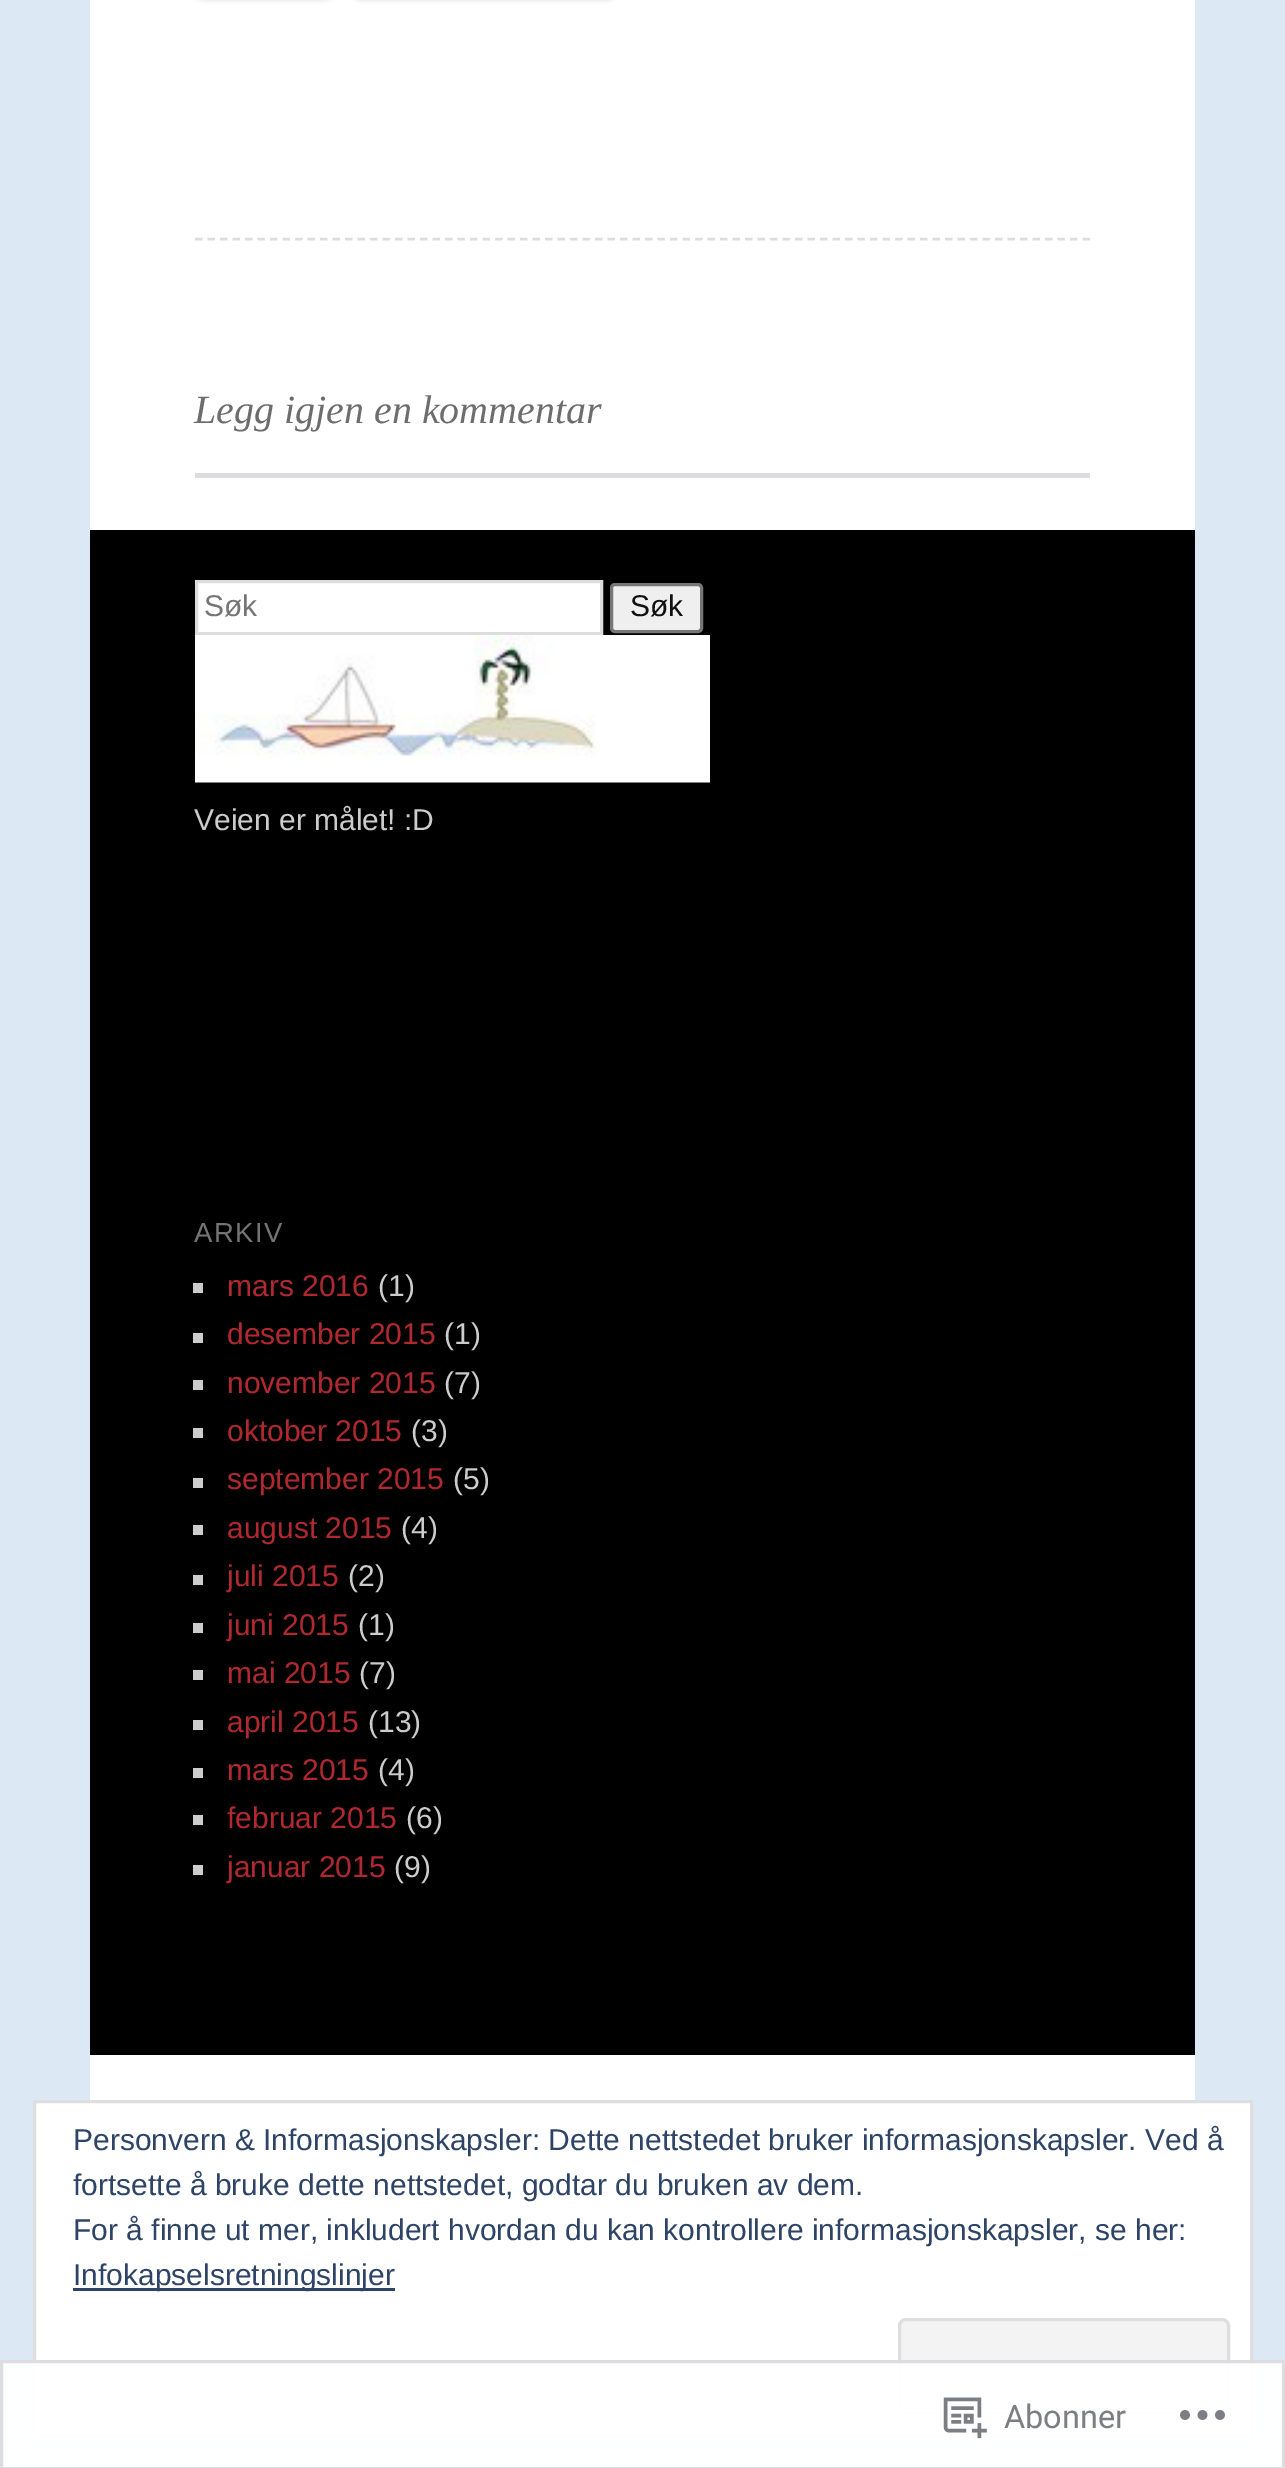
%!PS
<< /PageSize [1285 2468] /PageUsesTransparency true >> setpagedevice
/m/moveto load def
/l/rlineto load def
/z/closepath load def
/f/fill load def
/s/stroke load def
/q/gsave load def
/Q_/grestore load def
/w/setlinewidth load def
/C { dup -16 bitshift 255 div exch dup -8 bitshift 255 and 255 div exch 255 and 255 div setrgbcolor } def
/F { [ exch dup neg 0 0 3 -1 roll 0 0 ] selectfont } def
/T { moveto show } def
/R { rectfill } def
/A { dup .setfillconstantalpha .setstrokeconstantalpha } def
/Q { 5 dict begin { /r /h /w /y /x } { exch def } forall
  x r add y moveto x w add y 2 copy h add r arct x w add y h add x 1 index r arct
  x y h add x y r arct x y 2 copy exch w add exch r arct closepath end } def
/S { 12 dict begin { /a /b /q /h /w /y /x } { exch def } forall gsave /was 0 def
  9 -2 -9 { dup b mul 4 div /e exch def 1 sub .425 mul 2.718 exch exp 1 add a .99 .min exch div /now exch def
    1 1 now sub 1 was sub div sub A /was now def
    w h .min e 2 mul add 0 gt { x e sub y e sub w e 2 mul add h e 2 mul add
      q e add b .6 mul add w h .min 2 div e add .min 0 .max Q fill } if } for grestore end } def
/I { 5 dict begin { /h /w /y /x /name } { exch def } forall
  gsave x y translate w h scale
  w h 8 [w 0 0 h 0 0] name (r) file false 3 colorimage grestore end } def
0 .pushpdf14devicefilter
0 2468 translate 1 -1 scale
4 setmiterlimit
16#DCE8F3 C
0 0 1285 2468 R
16#FFFFFF C
90 0 1105 2100 R
16#000000 C
195 -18 138 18 10 2.5 .12 S
353 -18 262 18 10 2.5 .12 S
16#DDDDDD C
2.5 w
[7.5 5] 0 setdash
195 239 m 895 0 l s
/LiberationSerif-Italic 40 F
16#6D6D6D C
(Legg igjen en kommentar) 194 423 T
16#DCDCDE C
195 473 895 5 R
16#000000 C
90 530 1105 1525 R
16#FFFFFF C
196.5 581.5 m 405 0 l 0 52 l -405 0 l z q f Q_
16#DDDDDD C
3 w
[] 0 setdash
s
/LiberationSans-Regular 30 F
16#757575 C
(Søk) 204 616 T
16#EFEFEF C
611.5 584.5 90 47 3.5 Q q f Q_
16#767676 C
s
16#111111 C
(Søk) 630 616 T
(1.rgb) 195 635 515 148 I
16#CCCCCC C
(Veien er målet! :D) 194 830 T
/LiberationSans-Regular 27.5 F
16#757575 C
194 1242 m 1.5 0 (ARKIV) ashow
16#CCCCCC C
193 1283 10 10 R
/LiberationSans-Regular 30 F
16#B12930 C
(mars 2016) 227 1296 T
16#CCCCCC C
(\(1\)) 378 1296 T
193 1333 10 10 R
16#B12930 C
(desember 2015) 227 1344 T
16#CCCCCC C
(\(1\)) 444 1344 T
193 1380 10 10 R
16#B12930 C
(november 2015) 227 1393 T
16#CCCCCC C
(\(7\)) 444 1393 T
193 1428 10 10 R
16#B12930 C
(oktober 2015) 227 1441 T
16#CCCCCC C
(\(3\)) 411 1441 T
193 1478 10 10 R
16#B12930 C
(september 2015) 227 1489 T
16#CCCCCC C
(\(5\)) 453 1489 T
193 1525 10 10 R
16#B12930 C
(august 2015) 227 1538 T
16#CCCCCC C
(\(4\)) 401 1538 T
193 1575 10 10 R
16#B12930 C
(juli 2015) 227 1586 T
16#CCCCCC C
(\(2\)) 348 1586 T
193 1623 10 10 R
16#B12930 C
(juni 2015) 227 1635 T
16#CCCCCC C
(\(1\)) 358 1635 T
193 1670 10 10 R
16#B12930 C
(mai 2015) 227 1683 T
16#CCCCCC C
(\(7\)) 359 1683 T
193 1720 10 10 R
16#B12930 C
(april 2015) 227 1732 T
16#CCCCCC C
(\(13\)) 368 1732 T
193 1768 10 10 R
16#B12930 C
(mars 2015) 227 1780 T
16#CCCCCC C
(\(4\)) 378 1780 T
193 1815 10 10 R
16#B12930 C
(februar 2015) 227 1828 T
16#CCCCCC C
(\(6\)) 406 1828 T
193 1865 10 10 R
16#B12930 C
(januar 2015) 227 1877 T
16#CCCCCC C
(\(9\)) 394 1877 T
16#FFFFFF C
34.5 2101.5 m 1217 0 l 0 335 l -1217 0 l z q f Q_
16#DEDEDE C
s
16#2E4467 C
(Personvern & Informasjonskapsler: Dette nettstedet bruker informasjonskapsler. Ved å) 73 2150 T
(fortsette å bruke dette nettstedet, godtar du bruken av dem.) 73 2195 T
(For å finne ut mer, inkludert hvordan du kan kontrollere informasjonskapsler, se her:) 73 2240 T
73 2288 322 3 R
(Infokapselsretningslinjer) 73 2285 T
16#F3F3F3 C
899.5 2319.5 329 94 6.5 Q q f Q_
16#DEDEDE C
s
0.98 A
16#FFFFFF C
0 2360 1285 108 R
16#DCDCDE C
1.5 2361.5 1282 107 rectstroke
1 A
(2.rgb) 943 2397 44 42 I
/Roboto-Regular 32.5 F
16#7B7F84 C
(Abonner) 1004 2428 T
(3.rgb) 1180 2410 45 10 I
.poppdf14devicefilter showpage
